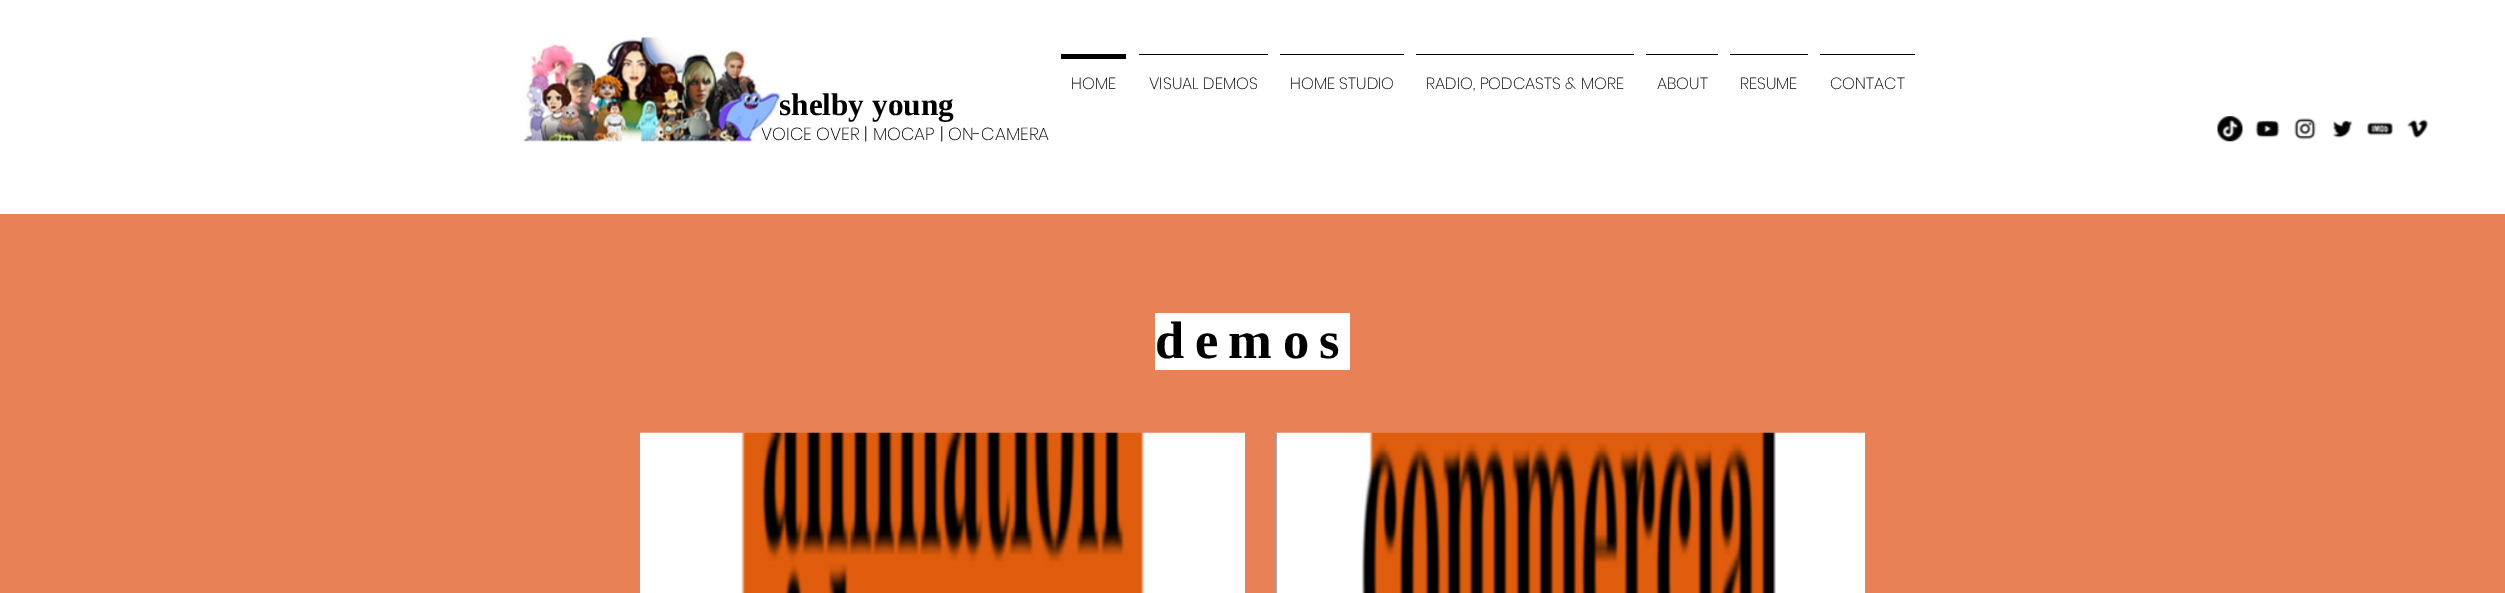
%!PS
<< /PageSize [2505 593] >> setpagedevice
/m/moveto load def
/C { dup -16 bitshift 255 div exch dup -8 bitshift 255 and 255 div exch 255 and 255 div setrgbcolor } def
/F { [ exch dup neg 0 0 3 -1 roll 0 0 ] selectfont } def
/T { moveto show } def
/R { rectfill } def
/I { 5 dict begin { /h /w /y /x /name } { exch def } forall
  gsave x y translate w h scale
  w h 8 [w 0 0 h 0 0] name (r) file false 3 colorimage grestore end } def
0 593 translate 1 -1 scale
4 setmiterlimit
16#FFFFFF C
0 0 2505 593 R
(1.rgb) 523 37 258 105 I
16#000000 C
1061 54 65 5 R
/Poppins-ExtraLight 16.25 F
(HOME) 1071 89 T
1139 54 129 1 R
(VISUAL DEMOS) 1149 89 T
1280 54 124 1 R
(HOME STUDIO) 1290 89 T
1416 54 218 1 R
(RADIO, PODCASTS & MORE) 1426 89 T
1646 54 72 1 R
(ABOUT) 1657 89 T
1730 54 78 1 R
(RESUME) 1740 89 T
1820 54 95 1 R
(CONTACT) 1830 89 T
/LiberationSerif-Bold 31.25 F
(shelby young) 779 115 T
/Poppins-ExtraLight 17.5 F
(VOICE OVER | MOCAP | ON-CAMERA) 761 140 T
(2.rgb) 2217 116 26 26 I
(3.rgb) 2255 120 25 18 I
(4.rgb) 2294 118 22 22 I
(5.rgb) 2333 120 20 18 I
(6.rgb) 2367 122 26 14 I
(7.rgb) 2407 119 22 20 I
16#E88256 C
0 214 2505 379 R
16#FFFFFF C
1155 313 195 57 R
/LiberationSerif-Bold 52.5 F
16#000000 C
1155 358 m 10.5 0 (demos) ashow
(8.rgb) 640 432 605 161 I
16#045184 C
1276 433 1 160 R
(9.rgb) 1276 432 589 161 I
showpage
